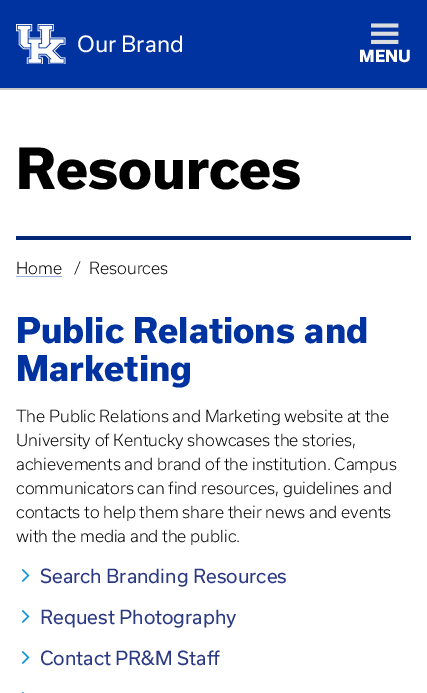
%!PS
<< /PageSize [427 693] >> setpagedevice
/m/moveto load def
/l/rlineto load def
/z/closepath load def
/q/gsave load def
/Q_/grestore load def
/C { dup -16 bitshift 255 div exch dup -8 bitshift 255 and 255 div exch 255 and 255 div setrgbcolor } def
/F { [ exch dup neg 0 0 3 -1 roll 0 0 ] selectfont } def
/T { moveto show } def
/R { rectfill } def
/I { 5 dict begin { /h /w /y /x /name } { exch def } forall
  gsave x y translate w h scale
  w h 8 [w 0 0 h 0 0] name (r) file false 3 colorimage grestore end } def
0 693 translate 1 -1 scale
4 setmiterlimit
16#FFFFFF C
0 0 427 693 R
16#0033A0 C
0 0 427 88 R
(1.rgb) 16 24 50 40 I
/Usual-Regular 21.5 F
16#FFFFFF C
(Our Brand) 77 52 T
(2.rgb) 371 23 28 21 I
/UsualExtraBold-ExtraBold 16 F
(MENU) 359 62 T
16#C8C8C7 C
0 88 427 2 R
16#002678 C
16 236 395 4 R
/UsualExtraBold-ExtraBold 54 F
16#000000 C
(Resources) 16 189 T
/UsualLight-Light 16 F
(Home) 16 274 T
q 16 275 m 46 0 l 0 2 l -46 0 l z clip newpath
<< /ShadingType 2 /ColorSpace /DeviceRGB /Coords [39 277 39 259] /Extend [true true] /Function << /FunctionType 3 /Domain [0 1] /Functions [<< /FunctionType 2 /Domain [0 1] /C0 [.6 .678 .851] /C1 [.6 .678 .851] /N 1 >> << /FunctionType 2 /Domain [0 1] /C0 [1 1 1] /C1 [1 1 1] /N 1 >>] /Bounds [.11] /Encode [0 1 0 1] >> >> shfill Q_
(/) 74 274 T
(Resources) 89 274 T
/UsualExtraBold-ExtraBold 34 F
16#0033A0 C
(Public Relations and) 16 343 T
(Marketing) 16 381 T
/UsualLight-Light 16 F
16#000000 C
(The Public Relations and Marketing website at the) 16 422 T
(University of Kentucky showcases the stories,) 16 446 T
(achievements and brand of the institution. Campus) 16 470 T
(communicators can find resources, guidelines and) 16 494 T
(contacts to help them share their news and events) 16 518 T
(with the media and the public.) 16 542 T
(3.rgb) 21 569 9 13 I
/Usual-Regular 18.7 F
16#2B3A82 C
(Search Branding Resources) 40 583 T
(3.rgb) 21 610 9 13 I
(Request Photography) 40 624 T
(3.rgb) 21 651 9 13 I
(Contact PR&M Staff) 40 665 T
(4.rgb) 21 692 3 1 I
showpage
